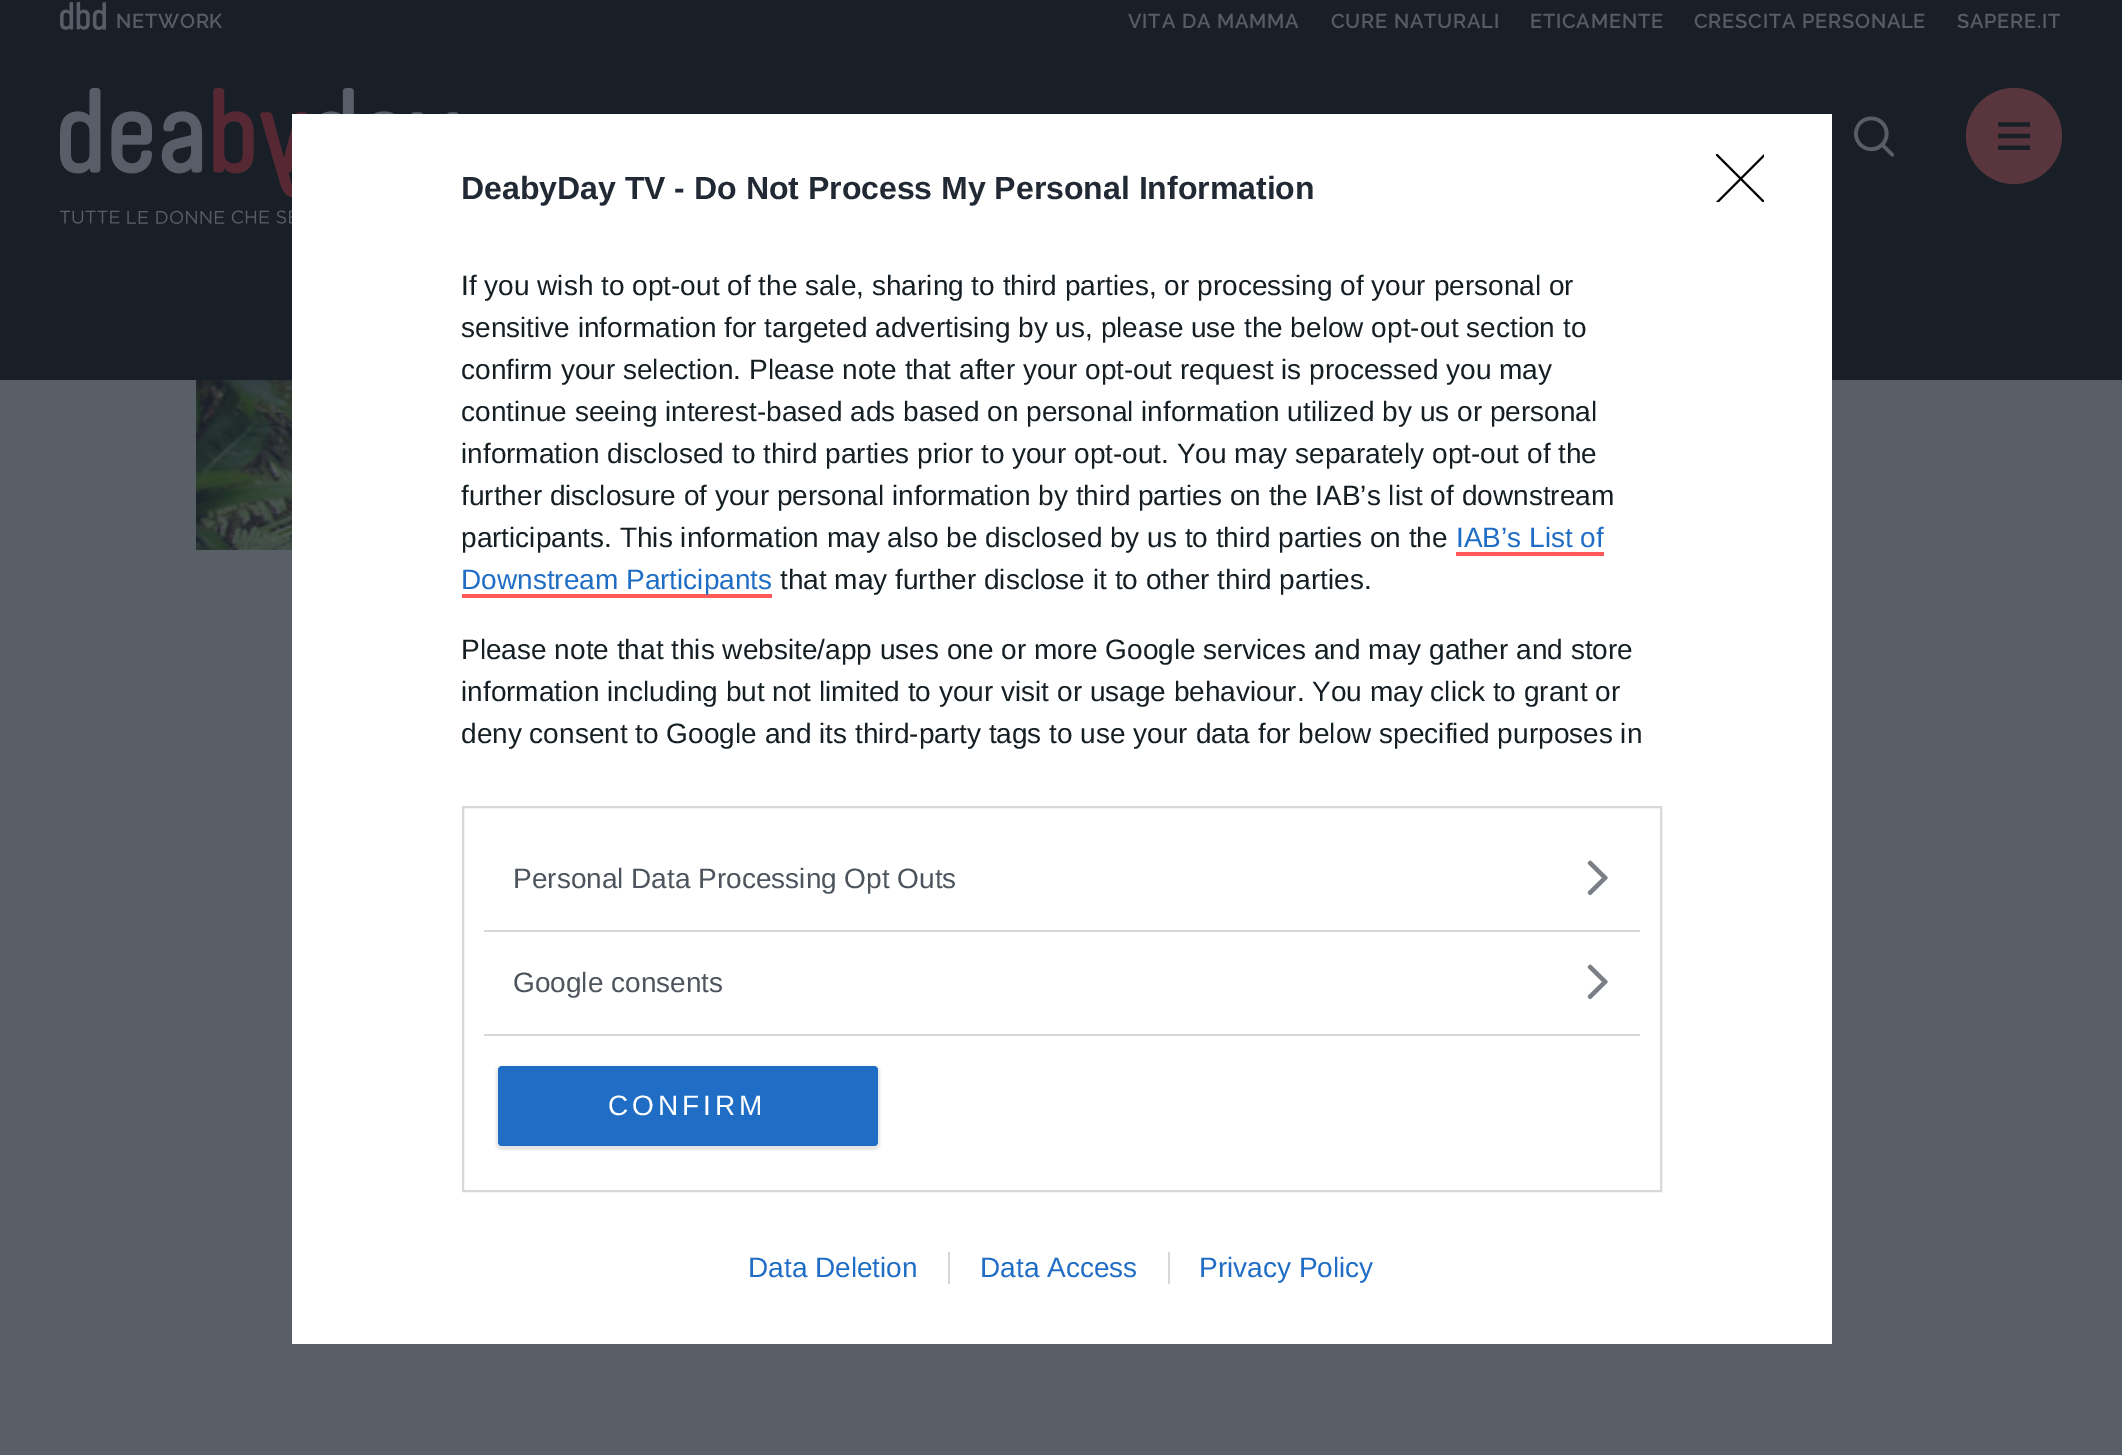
%!PS
<< /PageSize [2122 1455] /PageUsesTransparency true >> setpagedevice
/m/moveto load def
/l/rlineto load def
/f/fill load def
/s/stroke load def
/q/gsave load def
/Q_/grestore load def
/w/setlinewidth load def
/C { dup -16 bitshift 255 div exch dup -8 bitshift 255 and 255 div exch 255 and 255 div setrgbcolor } def
/F { [ exch dup neg 0 0 3 -1 roll 0 0 ] selectfont } def
/T { moveto show } def
/R { rectfill } def
/A { dup .setfillconstantalpha .setstrokeconstantalpha } def
/O { newpath 0 360 arc closepath } def
/Q { 5 dict begin { /r /h /w /y /x } { exch def } forall
  x r add y moveto x w add y 2 copy h add r arct x w add y h add x 1 index r arct
  x y h add x y r arct x y 2 copy exch w add exch r arct closepath end } def
/S { 12 dict begin { /a /b /q /h /w /y /x } { exch def } forall gsave /was 0 def
  9 -2 -9 { dup b mul 4 div /e exch def 1 sub .425 mul 2.718 exch exp 1 add a .99 .min exch div /now exch def
    1 1 now sub 1 was sub div sub A /was now def
    w h .min e 2 mul add 0 gt { x e sub y e sub w e 2 mul add h e 2 mul add
      q e add b .6 mul add w h .min 2 div e add .min 0 .max Q fill } if } for grestore end } def
/I { 5 dict begin { /h /w /y /x /name } { exch def } forall
  gsave x y translate w h scale
  w h 8 [w 0 0 h 0 0] name (r) file false 3 colorimage grestore end } def
0 .pushpdf14devicefilter
0 1455 translate 1 -1 scale
4 setmiterlimit
16#595F67 C
0 0 2122 1455 R
16#191F27 C
0 0 2122 380 R
(1.rgb) 60 2 46 28 I
/Raleway-SemiBold 20 F
16#565C64 C
116 28 m .75 0 (NETWORK) ashow
1128 28 m .75 0 (VITA DA MAMMA) ashow
1331 28 m .75 0 (CURE NATURALI) ashow
1530 28 m .75 0 (ETICAMENTE) ashow
1694 28 m .75 0 (CRESCITA PERSONALE) ashow
1957 28 m .75 0 (SAPERE.IT) ashow
(2.rgb) 60 88 398 136 I
(3.rgb) 1854 116 41 41 I
16#59353D C
2014 136 48 O f
(4.rgb) 1998 122 32 28 I
(5.rgb) 196 380 96 170 I
16#FFFFFF C
292 114 1540 1230 R
/LiberationSans-Bold 32 F
16#212934 C
(DeabyDay TV - Do Not Process My Personal Information) 461 199 T
/LiberationSans-Regular 28 F
16#141E23 C
(If you wish to opt-out of the sale, sharing to third parties, or processing of your personal or) 461 295 T
(sensitive information for targeted advertising by us, please use the below opt-out section to) 461 337 T
(confirm your selection. Please note that after your opt-out request is processed you may) 461 379 T
(continue seeing interest-based ads based on personal information utilized by us or personal) 461 421 T
(information disclosed to third parties prior to your opt-out. You may separately opt-out of the) 461 463 T
(further disclosure of your personal information by third parties on the IAB’s list of downstream) 461 505 T
(participants. This information may also be disclosed by us to third parties on the) 461 547 T
16#206DC5 C
(IAB’s List of) 1456 547 T
16#FF5959 C
1456 552 148 4 R
462 594 310 4 R
16#206DC5 C
(Downstream Participants) 461 589 T
16#141E23 C
(that may further disclose it to other third parties.) 780 589 T
(Please note that this website/app uses one or more Google services and may gather and store) 461 659 T
(information including but not limited to your visit or usage behaviour. You may click to grant or) 461 701 T
(deny consent to Google and its third-party tags to use your data for below specified purposes in) 461 743 T
16#D8D8D8 C
2 w
463 807 1198 384 rectstroke
484 930 1156 2 R
16#4D545D C
(Personal Data Processing Opt Outs) 513 888 T
(6.rgb) 1587 860 21 36 I
16#D8D8D8 C
484 1034 1156 2 R
16#4D545D C
(Google consents) 513 992 T
(6.rgb) 1587 964 21 36 I
16#000000 C
496 1066 384 84 6 1 .1 S
16#206DC5 C
498 1066 380 80 4 Q f
16#FFFFFF C
608 1115 m 4 0 (CONFIRM) ashow
q
1716 154 48 48 rectclip
16#000000 C
2.1 w
1 setlinecap
1 setlinejoin
1717 155 m 47.5 47.5 l 1764.5 155 m -47.5 47.5 l s
Q_
16#206DC5 C
(Data Deletion) 748 1277 T
(Data Access) 980 1277 T
16#D8D8D8 C
948 1252 2 32 R
16#206DC5 C
(Privacy Policy) 1199 1277 T
16#D8D8D8 C
1168 1252 2 32 R
.poppdf14devicefilter showpage
